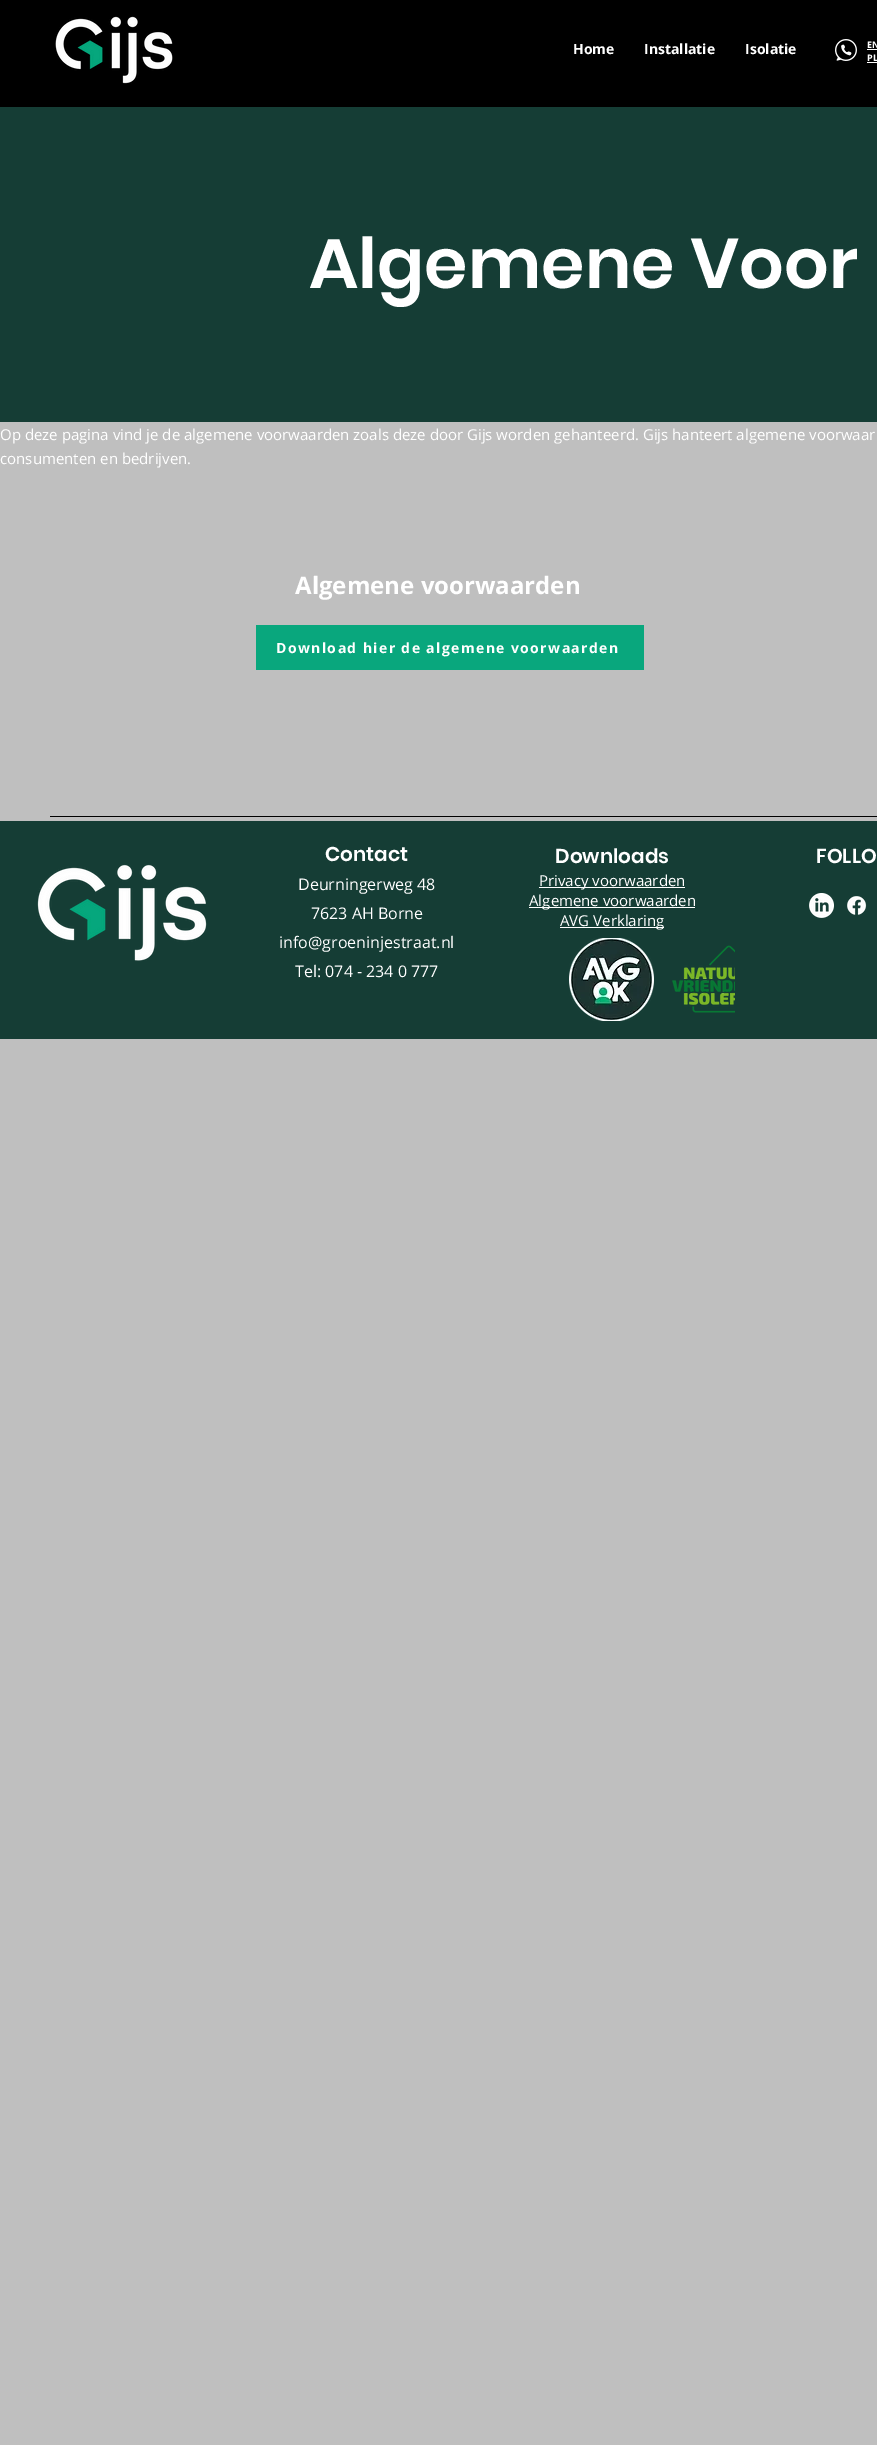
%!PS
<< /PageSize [877 2445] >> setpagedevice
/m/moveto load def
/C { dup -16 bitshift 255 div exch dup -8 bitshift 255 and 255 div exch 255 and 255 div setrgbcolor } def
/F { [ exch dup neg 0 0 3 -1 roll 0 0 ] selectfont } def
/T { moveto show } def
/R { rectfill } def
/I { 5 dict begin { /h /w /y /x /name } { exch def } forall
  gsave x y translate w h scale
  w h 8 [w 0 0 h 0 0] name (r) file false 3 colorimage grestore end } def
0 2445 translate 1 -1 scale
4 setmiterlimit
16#BFBFBF C
0 0 877 2445 R
16#000000 C
0 0 877 107 R
(1.rgb) 55 16 118 68 I
/OpenSans-Bold 14 F
16#FFFFFF C
(Home) 573 54 T
(Installatie) 644 54 T
(Isolatie) 745 54 T
(2.rgb) 835 39 22 22 I
/OpenSans-Bold 9 F
(EN) 867 48 T
867 49 10 1 R
(PL) 867 61 T
867 62 10 1 R
16#153D35 C
0 107 877 315 R
/Poppins-SemiBold 70 F
16#FFFFFF C
(Algemene Voor) 309 288 T
/OpenSans-Regular 15 F
(Op deze pagina vind je de algemene voorwaarden zoals deze door Gijs worden gehanteerd. Gijs hanteert algemene voorwaar) 0 440 T
(consumenten en bedrijven.) 0 464 T
/OpenSans-Bold 24 F
(Algemene voorwaarden) 295 594 T
16#09A77D C
256 625 388 45 R
/OpenSans-Bold 14 F
16#FFFFFF C
276 653 m 1.4 0 (Download hier de algemene voorwaarden) ashow
16#000000 C
50 816 827 1 R
16#153D35 C
0 821 877 218 R
/Poppins-SemiBold 20 F
16#FFFFFF C
(Contact) 325 861 T
/OpenSans-Regular 16 F
(Deurningerweg 48) 298 890 T
(7623 AH Borne) 311 919 T
(info@groeninjestraat.nl) 279 948 T
(Tel: 074 - 234 0 777) 295 977 T
/Poppins-SemiBold 20 F
(Downloads) 555 863 T
539 887 146 1 R
/OpenSans-Regular 15 F
(Privacy voorwaarden) 539 886 T
529 907 166 1 R
(Algemene voorwaarden) 529 906 T
560 927 104 1 R
(AVG Verklaring) 560 926 T
(3.rgb) 569 938 85 83 I
(4.rgb) 672 945 63 68 I
/Poppins-SemiBold 20 F
(FOLLO) 816 863 T
(5.rgb) 809 893 25 25 I
(6.rgb) 847 896 20 19 I
(7.rgb) 37 864 170 97 I
showpage
